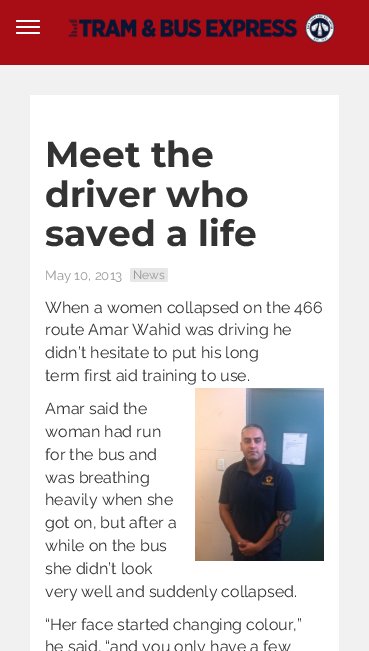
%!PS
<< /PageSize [369 651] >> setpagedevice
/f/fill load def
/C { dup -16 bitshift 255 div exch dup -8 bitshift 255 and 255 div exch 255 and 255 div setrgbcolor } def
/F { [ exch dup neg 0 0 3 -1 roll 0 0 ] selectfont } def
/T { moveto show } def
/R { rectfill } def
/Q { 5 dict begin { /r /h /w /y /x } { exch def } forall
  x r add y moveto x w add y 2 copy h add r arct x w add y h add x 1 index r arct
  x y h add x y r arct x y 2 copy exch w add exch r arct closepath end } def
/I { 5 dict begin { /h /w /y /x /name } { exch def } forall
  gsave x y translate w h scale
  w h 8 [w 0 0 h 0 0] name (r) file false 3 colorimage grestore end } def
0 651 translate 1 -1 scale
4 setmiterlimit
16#F1F1F1 C
0 0 369 651 R
16#A80D15 C
0 0 369 65 R
16#FFFFFF C
16 20 24 2 1 Q f
16 26 24 2 1 Q f
16 32 24 2 1 Q f
(1.rgb) 68 13 267 31 I
30 95 309 556 R
/Montserrat-Bold 36 F
16#333333 C
(Meet the) 45 167 T
(driver who) 45 207 T
(saved a life) 45 246 T
/Raleway-Thin 13.25 F
16#999999 C
(May 10, 2013) 45 280 T
16#E7E7E7 C
130 268 38 14 2 Q f
/Raleway-Thin 12 F
16#999999 C
(News) 133 279 T
/Raleway-Thin 16 F
16#333333 C
(When a women collapsed on the 466) 45 313 T
(route Amar Wahid was driving he) 45 335 T
(didn’t hesitate to put his long) 45 358 T
(term first aid training to use.) 45 381 T
(2.rgb) 195 388 129 173 I
(Amar said the) 45 414 T
(woman had run) 45 437 T
(for the bus and) 45 460 T
(was breathing) 45 483 T
(heavily when she) 45 505 T
(got on, but after a) 45 528 T
(while on the bus) 45 551 T
(she didn’t look) 45 574 T
(very well and suddenly collapsed.) 45 597 T
(“Her face started changing colour,”) 45 630 T
(he said, “and you only have a few) 45 652 T
showpage
